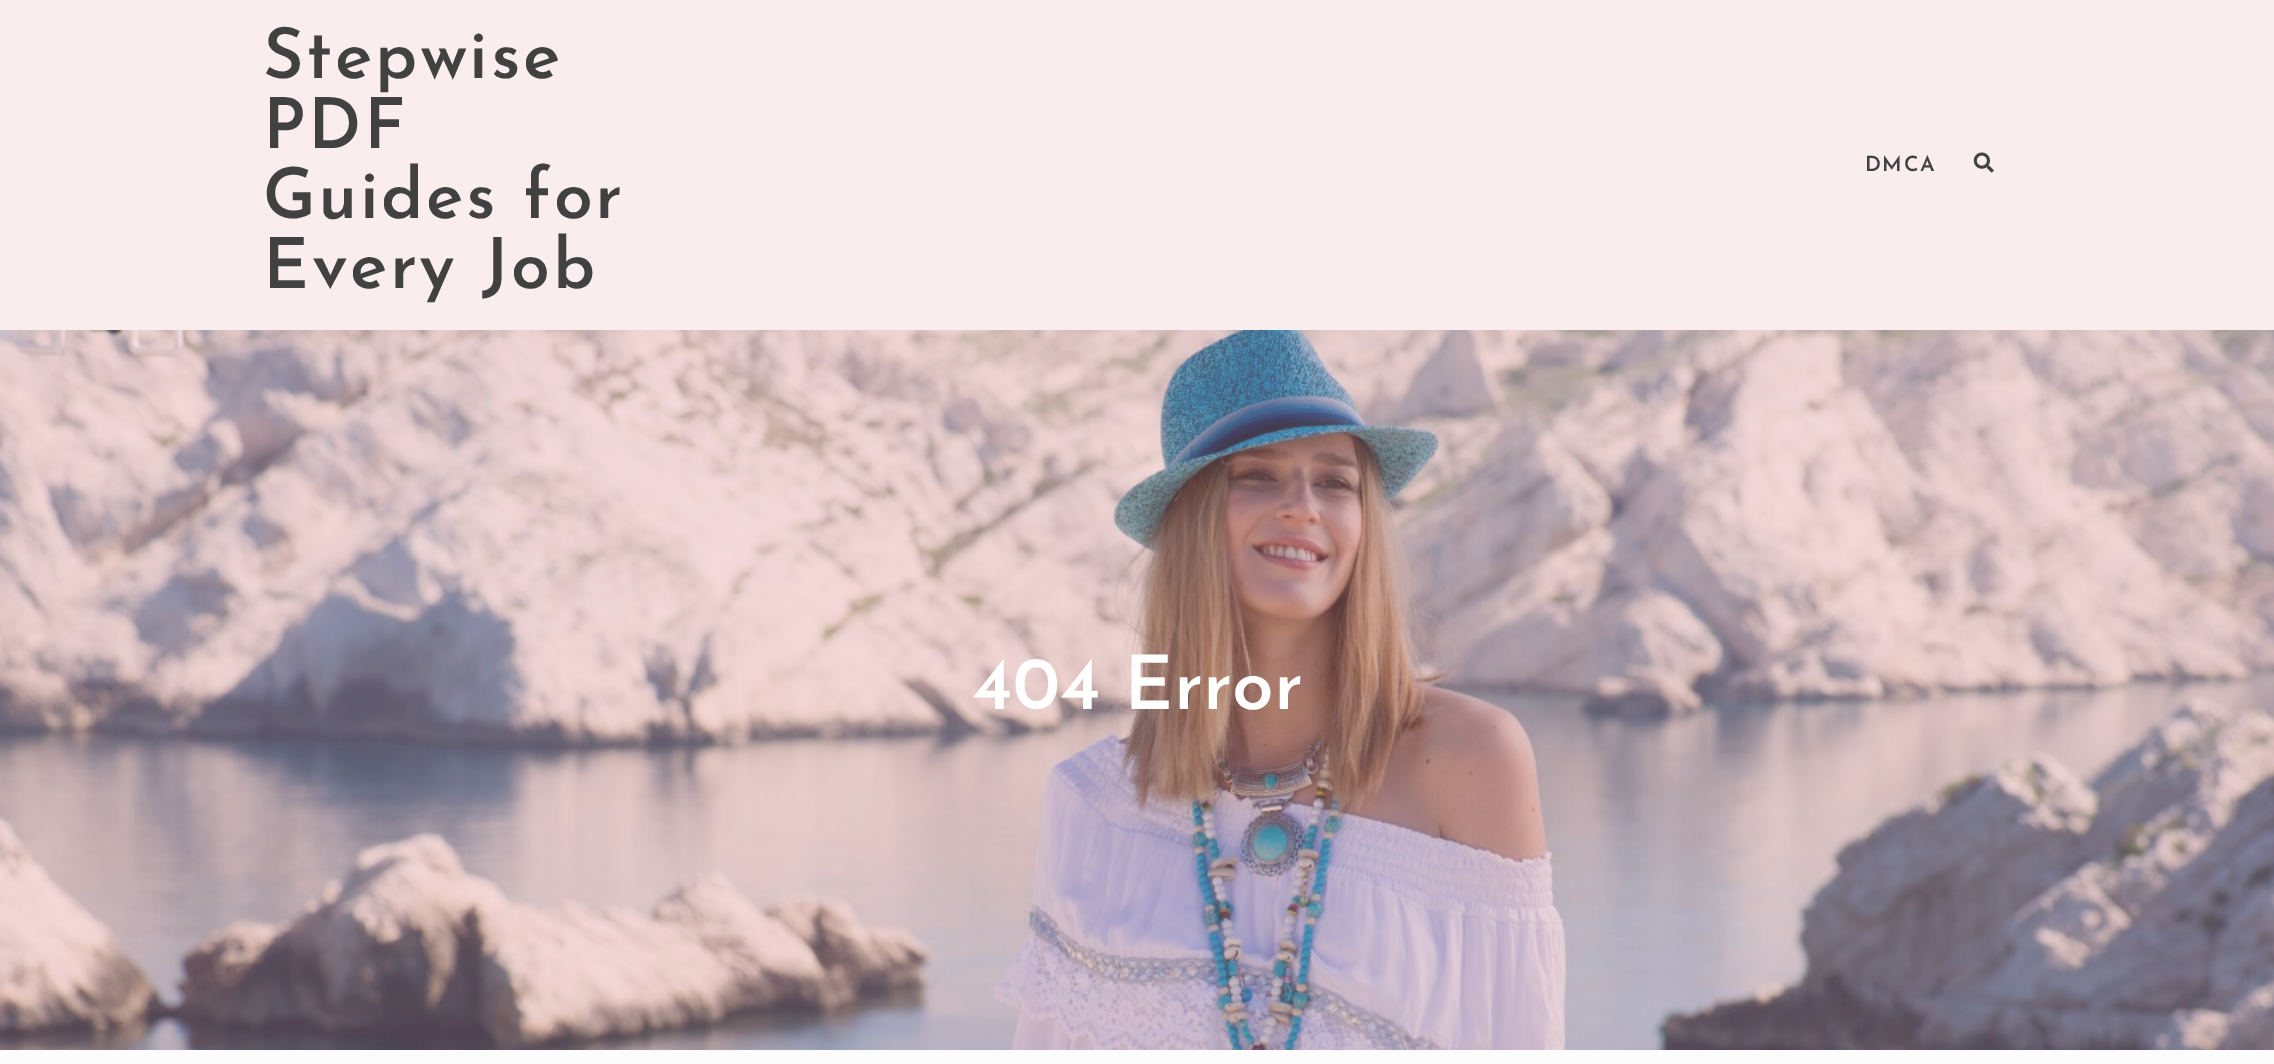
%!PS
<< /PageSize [2274 1064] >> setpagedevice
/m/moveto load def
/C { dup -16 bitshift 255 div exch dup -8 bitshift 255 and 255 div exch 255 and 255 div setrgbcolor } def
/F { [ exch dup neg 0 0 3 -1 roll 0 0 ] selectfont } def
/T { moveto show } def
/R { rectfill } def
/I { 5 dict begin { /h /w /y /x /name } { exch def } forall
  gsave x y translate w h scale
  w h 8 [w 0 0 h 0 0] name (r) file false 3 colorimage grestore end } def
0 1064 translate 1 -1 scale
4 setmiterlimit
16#FCFCFC C
0 0 2274 1064 R
16#FAEDED C
0 0 2274 330 R
/JosefinSans-SemiBold 70 F
16#414141 C
263 78 m 2.5 0 (Stepwise) ashow
263 148 m 2.5 0 (PDF) ashow
263 218 m 2.5 0 (Guides for) ashow
263 288 m 2.5 0 (Every Job) ashow
/JosefinSans-SemiBold 21 F
1865 171 m 1.5 0 (DMCA) ashow
(1.rgb) 1973 152 21 21 I
(2.rgb) 0 330 2274 720 I
/JosefinSans-SemiBold 75 F
16#FFFFFF C
(404 Error) 972 709 T
showpage
